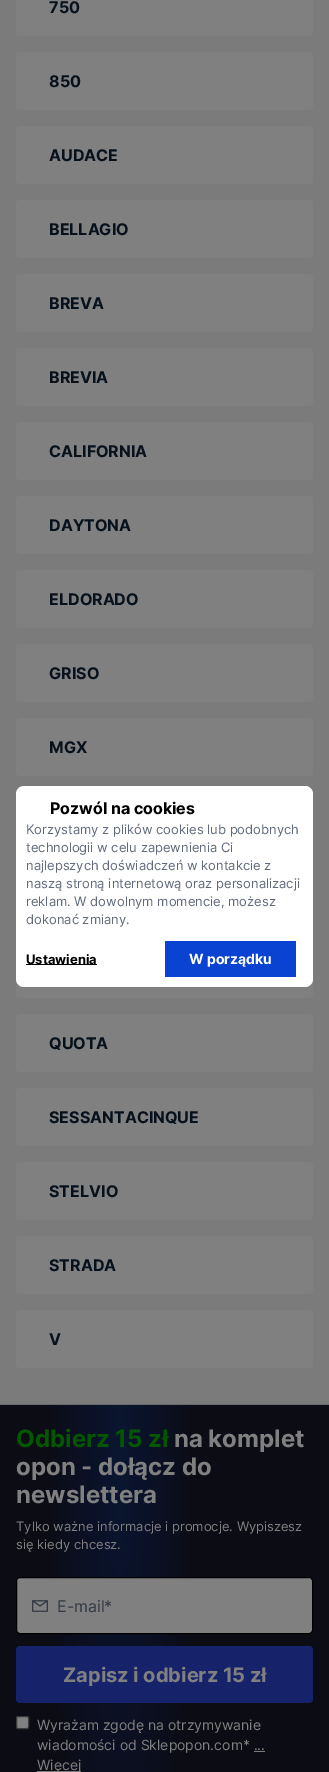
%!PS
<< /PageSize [329 1772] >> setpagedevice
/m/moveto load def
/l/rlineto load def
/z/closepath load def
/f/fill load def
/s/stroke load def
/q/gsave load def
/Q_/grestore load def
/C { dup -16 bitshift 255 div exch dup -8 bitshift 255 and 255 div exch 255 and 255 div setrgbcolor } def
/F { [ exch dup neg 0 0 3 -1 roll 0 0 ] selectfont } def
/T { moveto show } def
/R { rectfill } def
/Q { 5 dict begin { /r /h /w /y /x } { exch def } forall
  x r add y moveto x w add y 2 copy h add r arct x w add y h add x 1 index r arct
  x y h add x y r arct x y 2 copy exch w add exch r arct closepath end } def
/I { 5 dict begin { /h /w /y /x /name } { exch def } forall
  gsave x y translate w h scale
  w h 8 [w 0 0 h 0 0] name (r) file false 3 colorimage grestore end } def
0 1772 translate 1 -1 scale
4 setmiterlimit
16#7B7B7B C
0 0 329 1772 R
16#808080 C
16 -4 297 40 4 Q f
/Inter-Bold 16 F
16#06111C C
(750) 49 13 T
16#808080 C
16 52 297 58 4 Q f
16#06111C C
(850) 49 87 T
16#808080 C
16 126 297 58 4 Q f
16#06111C C
(AUDACE) 49 161 T
16#808080 C
16 200 297 58 4 Q f
16#06111C C
(BELLAGIO) 49 235 T
16#808080 C
16 274 297 58 4 Q f
16#06111C C
(BREVA) 49 309 T
16#808080 C
16 348 297 58 4 Q f
16#06111C C
(BREVIA) 49 383 T
16#808080 C
16 422 297 58 4 Q f
16#06111C C
(CALIFORNIA) 49 457 T
16#808080 C
16 496 297 58 4 Q f
16#06111C C
(DAYTONA) 49 531 T
16#808080 C
16 570 297 58 4 Q f
16#06111C C
(ELDORADO) 49 605 T
16#808080 C
16 644 297 58 4 Q f
16#06111C C
(GRISO) 49 679 T
16#808080 C
16 718 297 58 4 Q f
16#06111C C
(MGX) 49 753 T
16#808080 C
16.5 792.5 296 57 3.5 Q s
16 940 297 58 4 Q f
16 1014 297 58 4 Q f
16#06111C C
(QUOTA) 49 1049 T
16#808080 C
16 1088 297 58 4 Q f
16#06111C C
(SESSANTACINQUE) 49 1123 T
16#808080 C
16 1162 297 58 4 Q f
16#06111C C
(STELVIO) 49 1197 T
16#808080 C
16 1236 297 58 4 Q f
16#06111C C
(STRADA) 49 1271 T
16#808080 C
16 1310 297 58 4 Q f
16#06111C C
(V) 49 1345 T
16#68696C C
0 1404 329 1 R
16#FFFFFF C
16 786 297 201 8 Q f
16#000000 C
(Pozwól na cookies) 50 814 T
/Inter-Regular 13 F
16#616A7B C
(Korzystamy z plików cookies lub podobnych) 26 834 T
(technologii w celu zapewnienia Ci) 26 852 T
(najlepszych doświadczeń w kontakcie z) 26 870 T
(naszą stroną internetową oraz personalizacji) 26 888 T
(reklam. W dowolnym momencie, możesz) 26 906 T
(dokonać zmiany.) 26 924 T
16#000000 C
26 964 71 1 R
/Inter-Bold 13 F
(Ustawienia) 26 964 T
16#0A42D1 C
165 941 131 36 R
/Inter-Bold 14 F
16#FFFFFF C
(W porządku) 189 964 T
q 0 1405 m 329 0 l 0 367 l -329 0 l z clip newpath 120 1465 translate 138 902 scale
<< /ShadingType 3 /ColorSpace /DeviceRGB /Coords [0 0 0 0 0 1] /Extend [true true] /Function << /FunctionType 3 /Domain [0 1] /Functions [<< /FunctionType 2 /Domain [0 1] /C0 [.039 .082 .184] /C1 [.039 .082 .184] /N 1 >> << /FunctionType 2 /Domain [0 1] /C0 [.039 .082 .184] /C1 [.047 .047 .082] /N 1 >> << /FunctionType 2 /Domain [0 1] /C0 [.047 .047 .082] /C1 [.047 .047 .082] /N 1 >>] /Bounds [.04 .57] /Encode [0 1 0 1 0 1] >> >> shfill Q_
/Inter-Bold 24 F
16#045600 C
(Odbierz 15 zł) 16 1447 T
16#808080 C
(na komplet) 174 1447 T
(opon - dołącz do) 16 1475 T
(newslettera) 16 1503 T
/Inter-Regular 13 F
(Tylko ważne informacje i promocje. Wypiszesz) 16 1531 T
(się kiedy chcesz.) 16 1549 T
16.5 1577.5 296 56 3.5 Q q f Q_
16#000000 C
s
(1.rgb) 32 1600 16 12 I
/Inter-Regular 16 F
16#333843 C
(E-mail*) 57 1612 T
16#162269 C
16 1646 297 57 4 Q f
/Inter-Bold 20 F
16#808080 C
(Zapisz i odbierz 15 zł) 63 1682 T
16.5 1716.5 12 12 1.5 Q q f Q_
16#3B3B3B C
s
/Inter-Regular 14 F
16#808080 C
(Wyrażam zgodę na otrzymywanie) 37 1730 T
(wiadomości od Sklepopon.com* ...) 37 1750 T
16#7E7E7F C
37 1771 44 1 R
16#808080 C
(Więcej) 37 1770 T
16#7E7E7F C
254 1751 11 1 R
showpage
